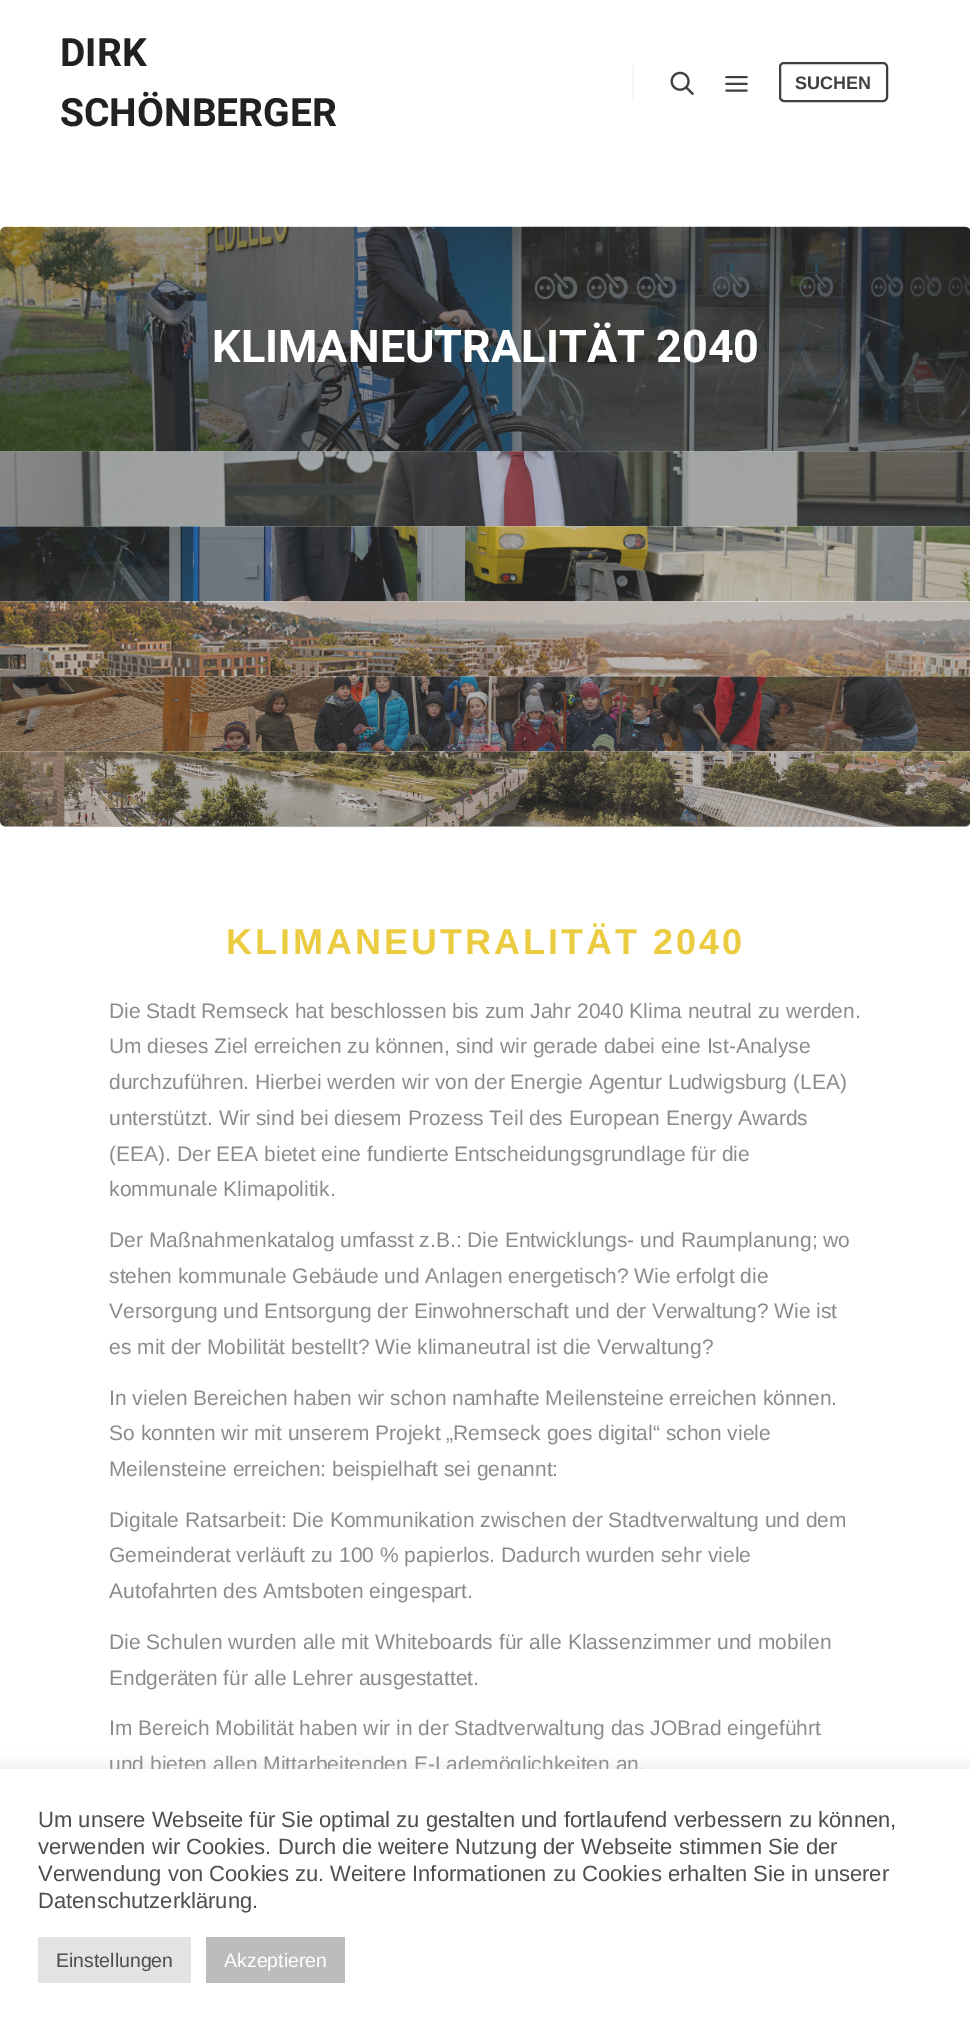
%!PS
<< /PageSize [970 2027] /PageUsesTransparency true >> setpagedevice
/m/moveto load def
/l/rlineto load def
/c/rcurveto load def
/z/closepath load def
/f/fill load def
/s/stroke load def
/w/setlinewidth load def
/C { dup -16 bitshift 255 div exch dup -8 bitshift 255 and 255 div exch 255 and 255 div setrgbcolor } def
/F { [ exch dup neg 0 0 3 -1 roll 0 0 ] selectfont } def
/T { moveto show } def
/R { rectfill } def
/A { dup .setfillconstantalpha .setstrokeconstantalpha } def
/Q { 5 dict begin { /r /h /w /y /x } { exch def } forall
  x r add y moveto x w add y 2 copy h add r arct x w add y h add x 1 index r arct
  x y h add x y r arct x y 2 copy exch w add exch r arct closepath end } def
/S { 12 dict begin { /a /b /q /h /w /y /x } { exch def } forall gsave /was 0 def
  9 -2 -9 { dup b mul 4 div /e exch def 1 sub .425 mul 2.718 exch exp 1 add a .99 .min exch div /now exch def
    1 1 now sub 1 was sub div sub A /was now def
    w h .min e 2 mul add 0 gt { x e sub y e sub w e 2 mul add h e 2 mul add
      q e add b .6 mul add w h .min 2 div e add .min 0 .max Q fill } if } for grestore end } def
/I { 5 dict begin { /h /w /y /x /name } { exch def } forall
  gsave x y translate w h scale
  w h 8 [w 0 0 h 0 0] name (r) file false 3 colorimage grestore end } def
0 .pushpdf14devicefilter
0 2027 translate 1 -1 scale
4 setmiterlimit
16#FFFFFF C
0 0 970 2027 R
/Roboto-Bold 39 F
16#212121 C
(DIRK) 60 66 T
(SCHÖNBERGER) 60 126 T
16#F5F5F5 C
632 65 2 37 R
(1.rgb) 670 71 24 25 I
(2.rgb) 725 76 23 16 I
16#3F3F3F C
2 w
780 63 107 38 4 Q s
/LiberationSans-Bold 18 F
(SUCHEN) 795 89 T
(3.rgb) 0 226 970 226 I
0.5 A
16#212121 C
6 227 m 959 0 l 3.5 0 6 2.5 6 6 c 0 219 l -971 0 l 0 -219 l 0 -3.5 2.5 -6 6 -6 c z f
/Roboto-Bold 45 F
1 A
16#FFFFFF C
(KLIMANEUTRALITÄT 2040) 212 362 T
(4.rgb) 0 451 970 76 I
(5.rgb) 0 526 970 76 I
(6.rgb) 0 601 970 76 I
(7.rgb) 0 676 970 76 I
(8.rgb) 0 751 970 76 I
0.3 A
16#212121 C
0 752 m 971 0 l 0 69 l 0 3.5 -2.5 6 -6 6 c -959 0 l -3.5 0 -6 -2.5 -6 -6 c z f
/LiberationSans-Bold 36 F
1 A
16#EBCC41 C
226 954 m 3 0 (KLIMANEUTRALITÄT 2040) ashow
/LiberationSans-Regular 21 F
16#8B8B8B C
(Die Stadt Remseck hat beschlossen bis zum Jahr 2040 Klima neutral zu werden.) 109 1018 T
(Um dieses Ziel erreichen zu können, sind wir gerade dabei eine Ist-Analyse) 109 1053 T
(durchzuführen. Hierbei werden wir von der Energie Agentur Ludwigsburg \(LEA\)) 109 1089 T
(unterstützt. Wir sind bei diesem Prozess Teil des European Energy Awards) 109 1125 T
(\(EEA\). Der EEA bietet eine fundierte Entscheidungsgrundlage für die) 109 1161 T
(kommunale Klimapolitik.) 109 1196 T
(Der Maßnahmenkatalog umfasst z.B.: Die Entwicklungs- und Raumplanung; wo) 109 1247 T
(stehen kommunale Gebäude und Anlagen energetisch? Wie erfolgt die) 109 1283 T
(Versorgung und Entsorgung der Einwohnerschaft und der Verwaltung? Wie ist) 109 1318 T
(es mit der Mobilität bestellt? Wie klimaneutral ist die Verwaltung?) 109 1354 T
(In vielen Bereichen haben wir schon namhafte Meilensteine erreichen können.) 109 1405 T
(So konnten wir mit unserem Projekt „Remseck goes digital“ schon viele) 109 1440 T
(Meilensteine erreichen: beispielhaft sei genannt:) 109 1476 T
(Digitale Ratsarbeit: Die Kommunikation zwischen der Stadtverwaltung und dem) 109 1527 T
(Gemeinderat verläuft zu 100 % papierlos. Dadurch wurden sehr viele) 109 1562 T
(Autofahrten des Amtsboten eingespart.) 109 1598 T
(Die Schulen wurden alle mit Whiteboards für alle Klassenzimmer und mobilen) 109 1649 T
(Endgeräten für alle Lehrer ausgestattet.) 109 1685 T
(Im Bereich Mobilität haben wir in der Stadtverwaltung das JOBrad eingeführt) 109 1735 T
(und bieten allen Mittarbeitenden E-Lademöglichkeiten an.) 109 1771 T
16#B7B6B6 C
0 1767 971 260 0 7.5 .3 S
16#FFFFFF C
0 1769 970 258 R
/LiberationSans-Regular 22 F
16#4E4E4E C
(Um unsere Webseite für Sie optimal zu gestalten und fortlaufend verbessern zu können,) 38 1827 T
(verwenden wir Cookies. Durch die weitere Nutzung der Webseite stimmen Sie der) 38 1854 T
(Verwendung von Cookies zu. Weitere Informationen zu Cookies erhalten Sie in unserer) 38 1881 T
(Datenschutzerklärung.) 38 1908 T
16#E2E3E4 C
38 1937 153 46 R
/LiberationSans-Regular 19.5 F
16#4E4E4E C
(Einstellungen) 56 1967 T
16#BCBCBC C
206 1937 139 46 R
16#FFFFFF C
(Akzeptieren) 224 1967 T
.poppdf14devicefilter showpage
